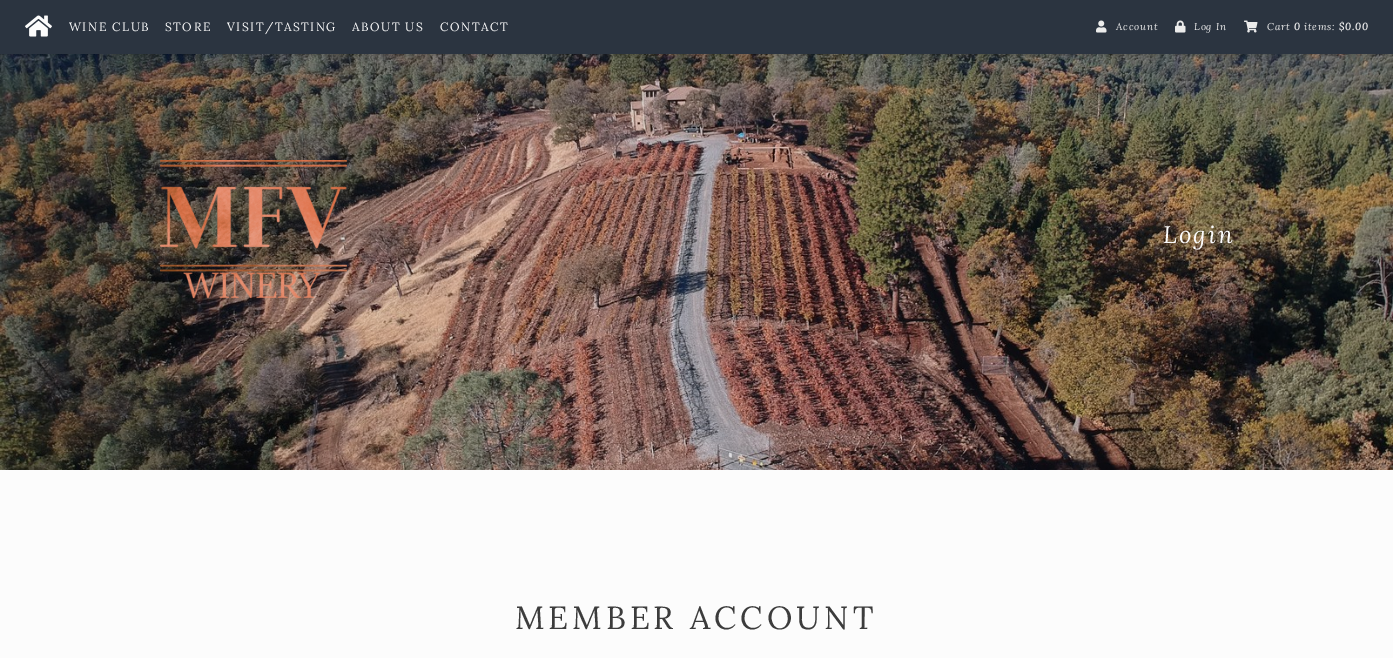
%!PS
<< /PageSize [1393 658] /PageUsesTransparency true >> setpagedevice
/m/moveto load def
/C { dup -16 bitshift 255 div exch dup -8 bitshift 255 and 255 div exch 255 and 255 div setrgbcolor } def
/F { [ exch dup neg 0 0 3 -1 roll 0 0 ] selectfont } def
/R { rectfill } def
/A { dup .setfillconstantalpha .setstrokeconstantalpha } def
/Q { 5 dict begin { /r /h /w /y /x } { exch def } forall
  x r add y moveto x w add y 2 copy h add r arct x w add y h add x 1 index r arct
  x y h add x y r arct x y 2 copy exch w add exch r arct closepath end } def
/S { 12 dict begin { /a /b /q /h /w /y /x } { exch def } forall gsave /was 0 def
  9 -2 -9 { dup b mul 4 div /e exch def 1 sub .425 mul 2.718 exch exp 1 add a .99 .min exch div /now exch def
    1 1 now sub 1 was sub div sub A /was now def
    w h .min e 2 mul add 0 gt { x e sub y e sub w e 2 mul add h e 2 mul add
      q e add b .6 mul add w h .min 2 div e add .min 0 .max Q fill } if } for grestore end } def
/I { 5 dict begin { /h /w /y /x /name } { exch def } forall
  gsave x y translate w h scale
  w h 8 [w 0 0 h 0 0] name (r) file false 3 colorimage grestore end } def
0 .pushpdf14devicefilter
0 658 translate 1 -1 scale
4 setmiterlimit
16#FCFCFC C
0 0 1393 658 R
(1.rgb) 0 54 1393 416 I
16#000000 C
0 0 1393 54 0 2.5 .25 S
16#2B3440 C
0 0 1393 54 R
(2.rgb) 25 15 27 22 I
/Lora-Regular 12 F
16#FBFBFB C
69 31 m 1.5 0 (WINE CLUB) ashow
165 31 m 1.5 0 (STORE) ashow
227 31 m 1.5 0 (VISIT/TASTING) ashow
352 31 m 1.5 0 (ABOUT US) ashow
440 31 m 1.5 0 (CONTACT) ashow
(3.rgb) 1096 20 11 13 I
/Lora-Italic 10 F
16#ECECEC C
1116 30 m .75 0 (Account) ashow
(4.rgb) 1175 20 11 13 I
1194 30 m .75 0 (Log In) ashow
(5.rgb) 1244 20 14 13 I
1267 30 m .75 0 (Cart) ashow
/Lora-BoldItalic 10 F
1294 30 m .75 0 (0) ashow
/Lora-Italic 10 F
1304 30 m .75 0 (items:) ashow
/Lora-BoldItalic 10 F
1339 30 m .75 0 ($0.00) ashow
(6.rgb) 160 160 187 139 I
/Lora-Italic 24 F
16#FBFBFB C
1163 243 m 2 0 (Login) ashow
/Lora-Regular 32 F
16#3C3C3C C
515 629 m 4 0 (MEMBER ACCOUNT) ashow
.poppdf14devicefilter showpage
